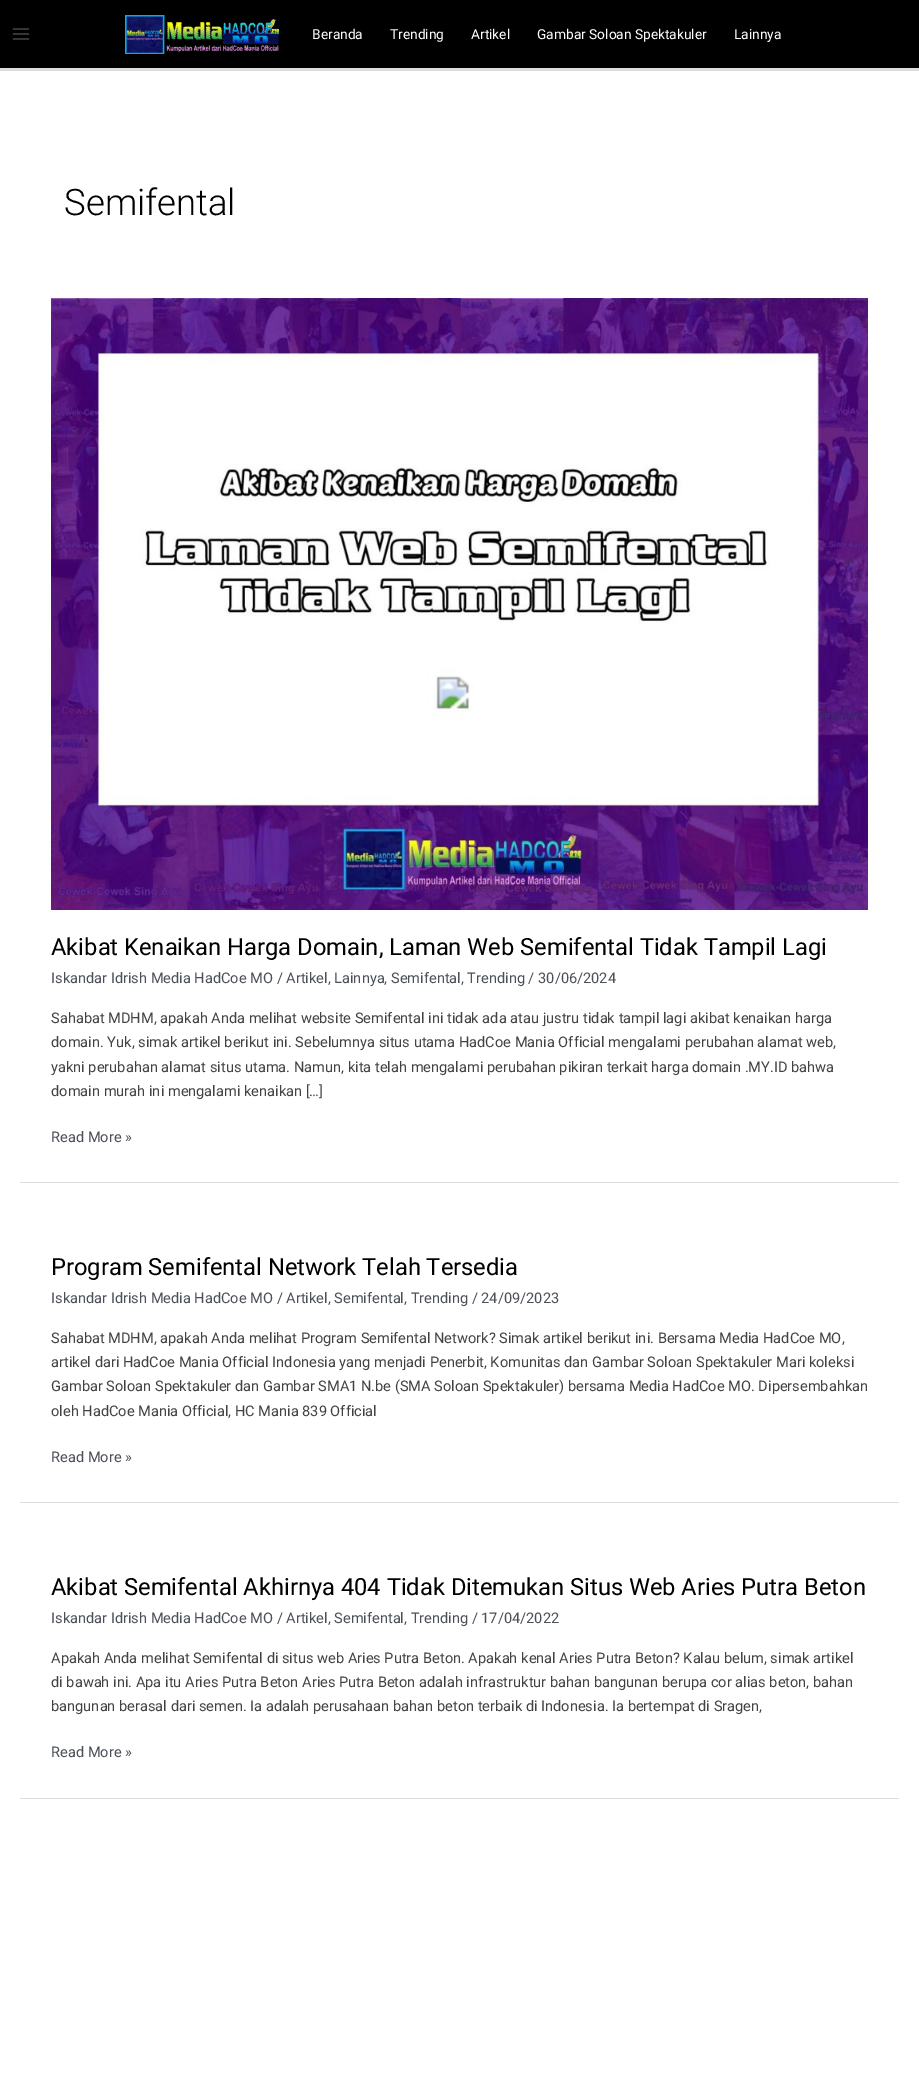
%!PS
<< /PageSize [919 2081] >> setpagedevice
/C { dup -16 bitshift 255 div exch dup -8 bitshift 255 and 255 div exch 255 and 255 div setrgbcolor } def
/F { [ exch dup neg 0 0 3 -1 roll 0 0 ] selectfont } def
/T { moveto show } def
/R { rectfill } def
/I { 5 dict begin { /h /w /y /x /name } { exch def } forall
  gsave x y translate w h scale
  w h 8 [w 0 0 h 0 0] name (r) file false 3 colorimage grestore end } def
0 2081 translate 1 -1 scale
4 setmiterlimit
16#FFFFFF C
0 0 919 2081 R
16#000000 C
0 0 919 68 R
16#DDDDDD C
0 68 919 3 R
(1.rgb) 12 28 18 12 I
(2.rgb) 125 15 154 39 I
/Roboto-Regular 13.75 F
16#FFFFFF C
(Beranda) 312 39 T
(Trending) 390 39 T
(Artikel) 471 39 T
(Gambar Soloan Spektakuler) 537 39 T
(Lainnya) 734 39 T
/Roboto-Light 36.5 F
16#000000 C
(Semifental) 64 215 T
16#DDDDDD C
20 1182 879 1 R
(3.rgb) 51 298 817 612 I
/Roboto-Regular 23.7 F
16#000000 C
(Akibat Kenaikan Harga Domain, Laman Web Semifental Tidak Tampil Lagi) 51 955 T
/Roboto-Regular 14.6 F
16#4B4F58 C
(Iskandar Idrish Media HadCoe MO / Artikel, Lainnya, Semifental, Trending / 30/06/2024) 51 983 T
16#424242 C
(Sahabat MDHM, apakah Anda melihat website Semifental ini tidak ada atau justru tidak tampil lagi akibat kenaikan harga) 51 1023 T
(domain. Yuk, simak artikel berikut ini. Sebelumnya situs utama HadCoe Mania Official mengalami perubahan alamat web,) 51 1047 T
(yakni perubahan alamat situs utama. Namun, kita telah mengalami perubahan pikiran terkait harga domain .MY.ID bahwa) 51 1072 T
(domain murah ini mengalami kenaikan […]) 51 1096 T
16#4B4F58 C
(Read More ») 51 1142 T
16#DDDDDD C
20 1502 879 1 R
/Roboto-Regular 23.7 F
16#000000 C
(Program Semifental Network Telah Tersedia) 51 1275 T
/Roboto-Regular 14.6 F
16#4B4F58 C
(Iskandar Idrish Media HadCoe MO / Artikel, Semifental, Trending / 24/09/2023) 51 1303 T
16#424242 C
(Sahabat MDHM, apakah Anda melihat Program Semifental Network? Simak artikel berikut ini. Bersama Media HadCoe MO,) 51 1343 T
(artikel dari HadCoe Mania Official Indonesia yang menjadi Penerbit, Komunitas dan Gambar Soloan Spektakuler Mari koleksi) 51 1367 T
(Gambar Soloan Spektakuler dan Gambar SMA1 N.be \(SMA Soloan Spektakuler\) bersama Media HadCoe MO. Dipersembahkan) 51 1391 T
(oleh HadCoe Mania Official, HC Mania 839 Official) 51 1416 T
16#4B4F58 C
(Read More ») 51 1462 T
16#DDDDDD C
20 1798 879 1 R
/Roboto-Regular 23.7 F
16#000000 C
(Akibat Semifental Akhirnya 404 Tidak Ditemukan Situs Web Aries Putra Beton) 51 1595 T
/Roboto-Regular 14.6 F
16#4B4F58 C
(Iskandar Idrish Media HadCoe MO / Artikel, Semifental, Trending / 17/04/2022) 51 1623 T
16#424242 C
(Apakah Anda melihat Semifental di situs web Aries Putra Beton. Apakah kenal Aries Putra Beton? Kalau belum, simak artikel) 51 1663 T
(di bawah ini. Apa itu Aries Putra Beton Aries Putra Beton adalah infrastruktur bahan bangunan berupa cor alias beton, bahan) 51 1687 T
(bangunan berasal dari semen. Ia adalah perusahaan bahan beton terbaik di Indonesia. Ia bertempat di Sragen,) 51 1711 T
16#4B4F58 C
(Read More ») 51 1757 T
showpage
